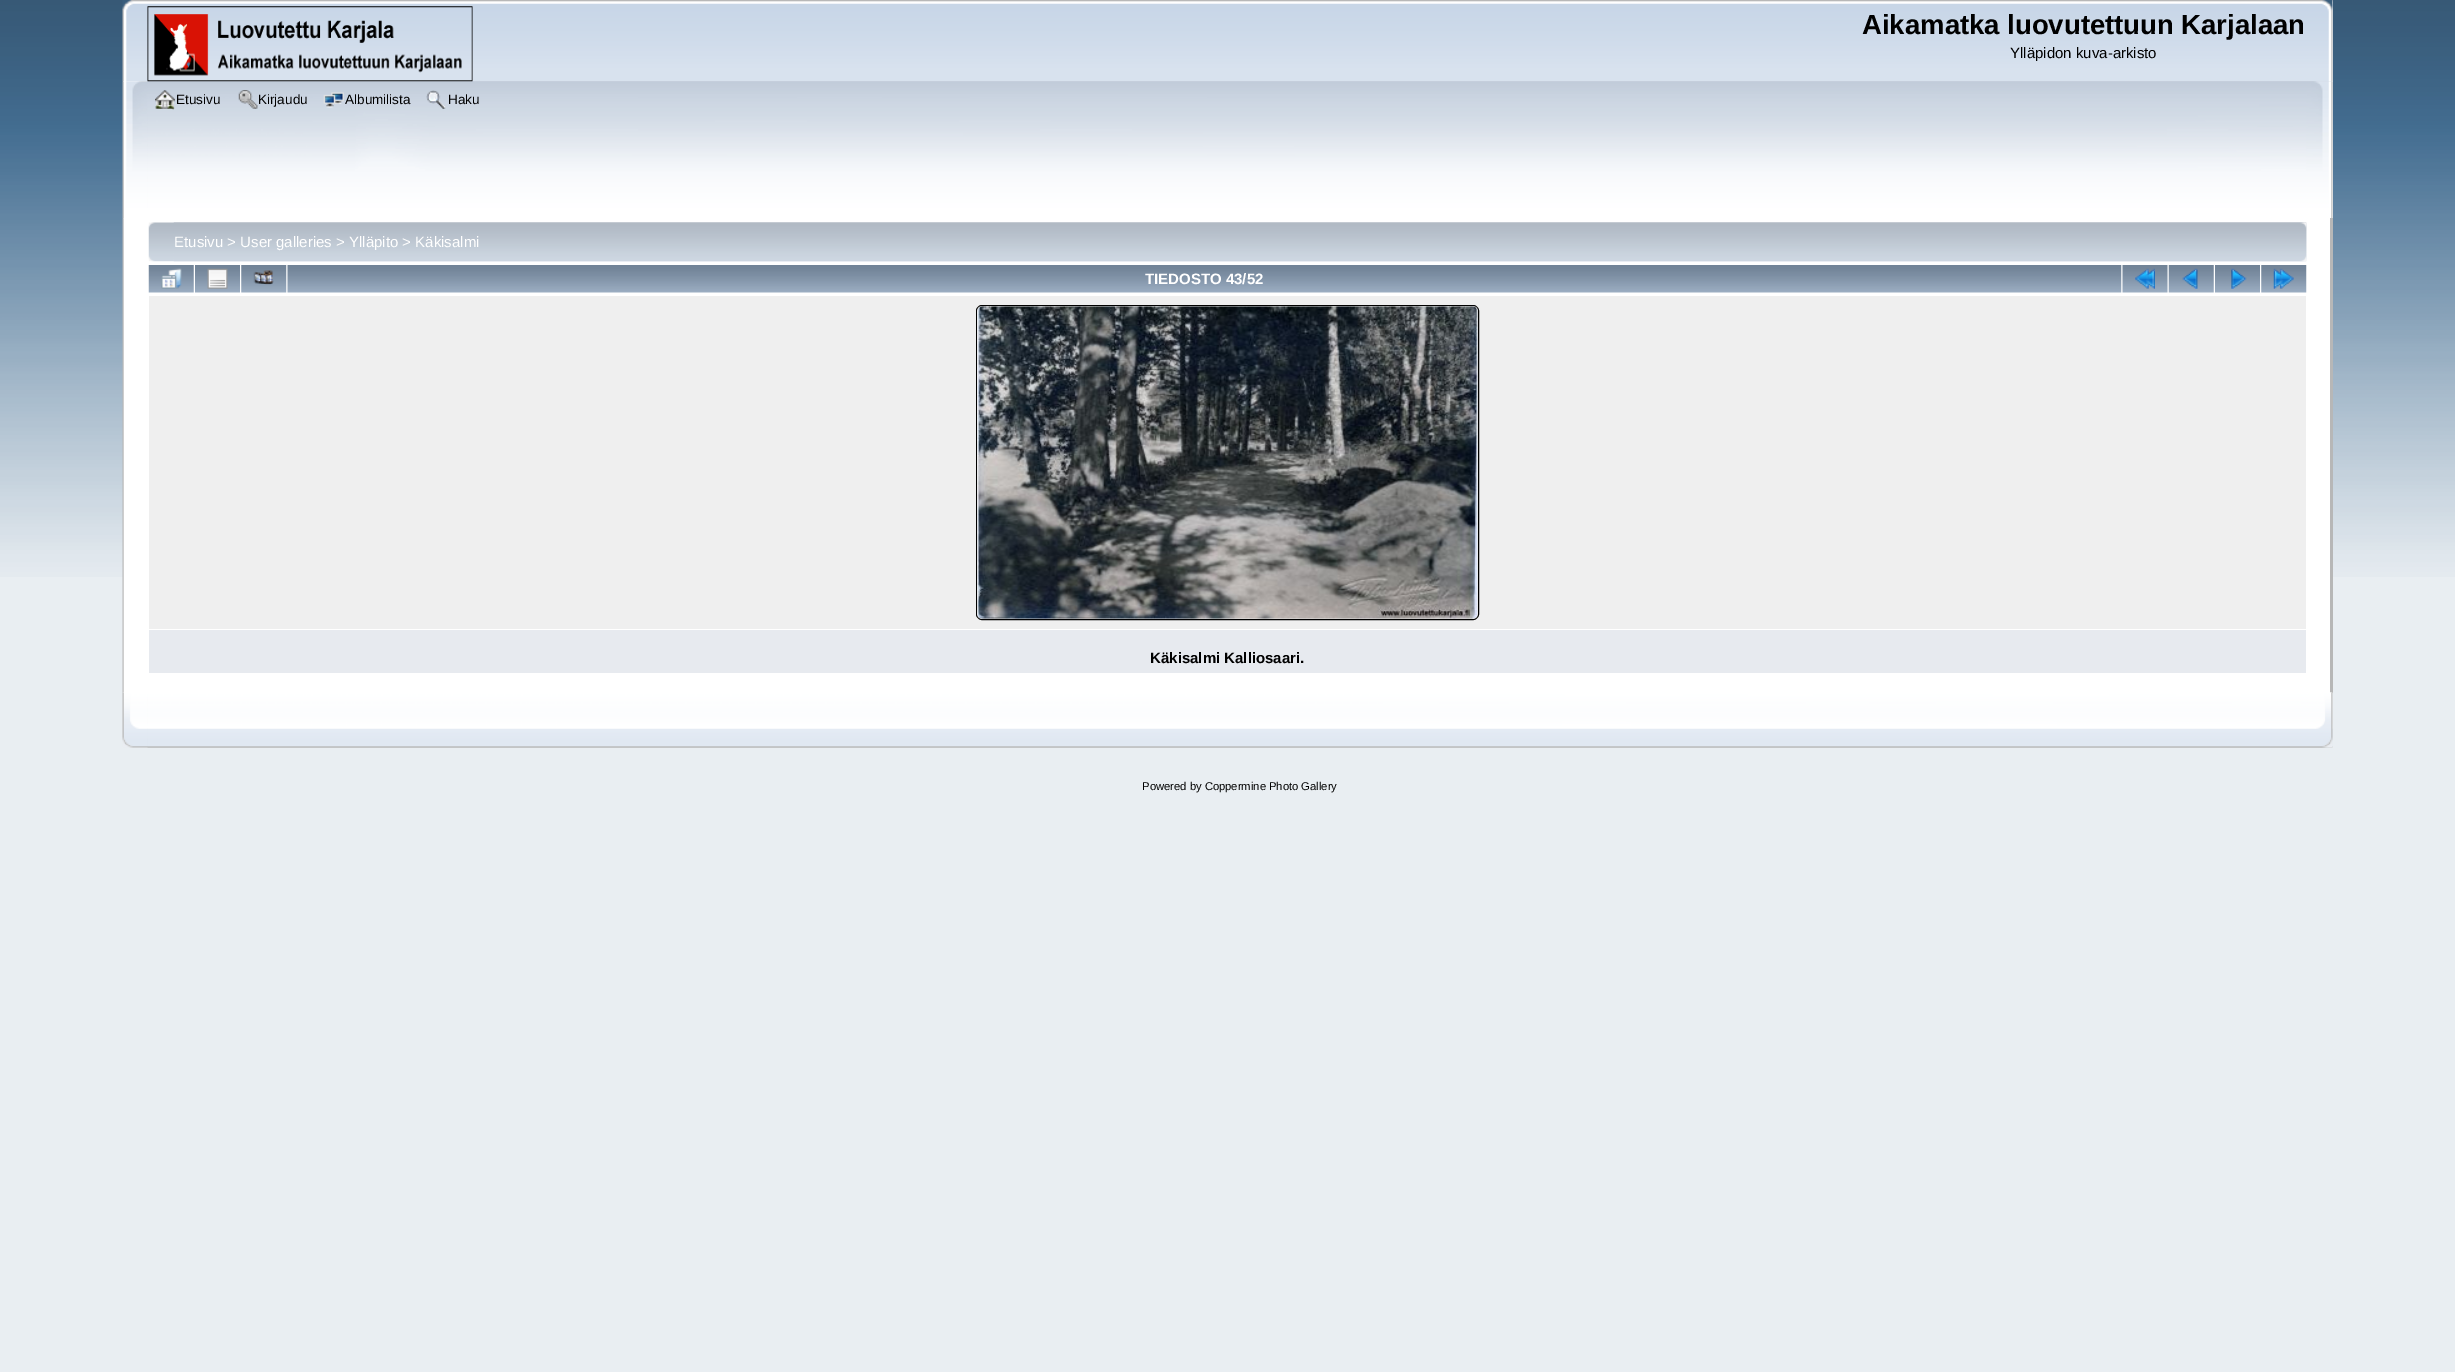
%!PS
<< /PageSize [2455 1372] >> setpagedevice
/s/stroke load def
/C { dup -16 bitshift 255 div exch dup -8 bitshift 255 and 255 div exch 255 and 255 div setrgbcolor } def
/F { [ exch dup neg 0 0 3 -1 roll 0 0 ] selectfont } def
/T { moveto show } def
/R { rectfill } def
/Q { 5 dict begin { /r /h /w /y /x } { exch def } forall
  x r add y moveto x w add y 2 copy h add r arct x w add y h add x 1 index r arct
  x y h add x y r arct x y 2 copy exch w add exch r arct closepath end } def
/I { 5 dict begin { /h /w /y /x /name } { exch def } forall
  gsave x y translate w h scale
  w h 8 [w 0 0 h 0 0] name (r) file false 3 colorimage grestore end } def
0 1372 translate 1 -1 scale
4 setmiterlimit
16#E9EEF2 C
0 0 2455 1372 R
(1.rgb) 0 0 2455 577 I
(2.rgb) 122 0 2211 82 I
(3.rgb) 147 0 2186 81 I
16#FEFEFE C
123 81 2210 138 R
(5.rgb) 122 81 2211 138 I
(6.rgb) 147 81 2186 138 I
(4.rgb) 147 6 326 76 I
/LiberationSans-Bold 27.5 F
16#000000 C
(Aikamatka luovutettuun Karjalaan) 1862 34 T
/LiberationSans-Regular 15 F
(Ylläpidon kuva-arkisto) 2010 58 T
(7.rgb) 155 90 20 20 I
/LiberationSans-Regular 13.5 F
(Etusivu) 176 104 T
(8.rgb) 238 90 20 19 I
(Kirjaudu) 258 104 T
(9.rgb) 323 92 21 16 I
(Albumilista) 345 104 T
(10.rgb) 426 90 20 19 I
(Haku) 448 104 T
(11.rgb) 122 218 2208 475 I
16#B7B7B7 C
2330 218 3 475 R
(12.rgb) 148 222 2159 40 I
(13.rgb) 173 222 2134 40 I
/LiberationSans-Regular 15 F
16#FFFFFF C
(Etusivu > User galleries > Ylläpito > Käkisalmi) 174 247 T
(14.rgb) 148 265 46 28 I
(15.rgb) 161 268 21 21 I
(16.rgb) 195 265 45 28 I
(17.rgb) 207 268 21 21 I
(18.rgb) 241 265 46 28 I
(19.rgb) 253 270 21 15 I
(20.rgb) 287 265 1835 28 I
/LiberationSans-Bold 15 F
(TIEDOSTO 43/52) 1145 284 T
(21.rgb) 2122 265 46 28 I
(22.rgb) 2135 268 20 21 I
(14.rgb) 2168 265 46 28 I
(23.rgb) 2182 268 16 21 I
(16.rgb) 2215 265 45 28 I
(24.rgb) 2231 268 16 21 I
(18.rgb) 2261 265 46 28 I
(25.rgb) 2273 268 21 21 I
16#EFEFEF C
149 296 2157 333 R
16#000000 C
976.5 305.5 502 314 5.5 Q s
(26.rgb) 977 306 501 313 I
16#E7EAEF C
149 630 2157 43 R
16#000000 C
(Käkisalmi Kalliosaari.) 1150 663 T
(27.rgb) 122 692 2211 56 I
(28.rgb) 147 692 2186 56 I
/LiberationSans-Regular 11.25 F
(Powered by Coppermine Photo Gallery) 1142 790 T
showpage
